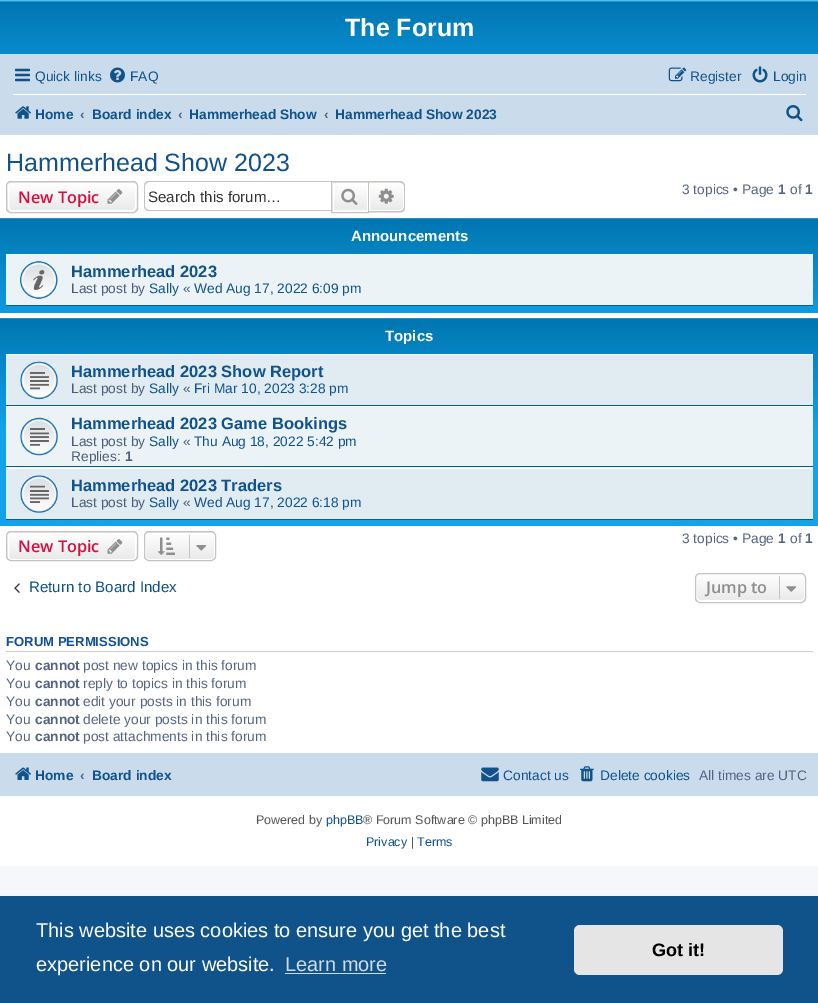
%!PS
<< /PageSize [818 1003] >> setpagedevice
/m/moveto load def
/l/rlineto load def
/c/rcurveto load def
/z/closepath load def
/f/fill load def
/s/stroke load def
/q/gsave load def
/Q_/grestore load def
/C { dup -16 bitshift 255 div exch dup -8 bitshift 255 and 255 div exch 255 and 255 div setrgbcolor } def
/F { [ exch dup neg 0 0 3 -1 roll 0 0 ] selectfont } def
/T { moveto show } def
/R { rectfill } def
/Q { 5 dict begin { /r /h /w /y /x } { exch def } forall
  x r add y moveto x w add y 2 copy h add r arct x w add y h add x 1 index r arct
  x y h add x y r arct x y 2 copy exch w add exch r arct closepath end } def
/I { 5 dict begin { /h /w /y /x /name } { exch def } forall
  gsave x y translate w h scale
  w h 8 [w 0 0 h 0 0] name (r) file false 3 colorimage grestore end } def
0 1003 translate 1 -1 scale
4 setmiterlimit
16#F5F7FA C
0 0 818 1003 R
16#FFFFFF C
0 135 818 731 R
q 0 0 m 818 0 l 0 54 l -818 0 l z clip newpath
<< /ShadingType 2 /ColorSpace /DeviceRGB /Coords [409 0 409 115] /Extend [true true] /Function << /FunctionType 3 /Domain [0 1] /Functions [<< /FunctionType 2 /Domain [0 1] /C0 [.416 .808 1] /C1 [0 .463 .694] /N 1 >> << /FunctionType 2 /Domain [0 1] /C0 [0 .463 .694] /C1 [.071 .639 .922] /N 1 >>] /Bounds [.02] /Encode [0 1 0 1] >> >> shfill Q_
/LiberationSans-Bold 25 F
(The Forum) 345 36 T
16#CADCEB C
0 54 818 81 R
(1.rgb) 15 68 15 14 I
/LiberationSans-Regular 13.75 F
16#105289 C
(Quick links) 35 81 T
(2.rgb) 110 67 15 16 I
(FAQ) 130 81 T
(3.rgb) 668 67 19 15 I
(Register) 690 81 T
(4.rgb) 752 66 16 17 I
(Login) 773 81 T
16#FFFFFF C
13 94 793 1 R
(5.rgb) 15 106 16 13 I
/LiberationSans-Bold 13.75 F
16#105289 C
(Home) 35 119 T
16#536482 C
(‹) 80 119 T
16#105289 C
(Board index) 92 119 T
16#536482 C
(‹) 178 119 T
16#105289 C
(Hammerhead Show) 189 119 T
16#536482 C
(‹) 324 119 T
16#105289 C
(Hammerhead Show 2023) 335 119 T
(6.rgb) 786 105 17 17 I
/LiberationSans-Regular 25 F
(Hammerhead Show 2023) 6 171 T
q
6 181 132 32 5 Q clip newpath
q 6 181 m 132 0 l 0 2 l -132 0 l z clip newpath
<< /ShadingType 2 /ColorSpace /DeviceRGB /Coords [72 154 72 183] /Extend [true true] /Function << /FunctionType 2 /Domain [0 1] /C0 [1 1 1] /C1 [.914 .914 .914] /N 1 >> >> shfill Q_
q 6 183 m 132 0 l 0 28 l -132 0 l z clip newpath
<< /ShadingType 2 /ColorSpace /DeviceRGB /Coords [72 183 72 211] /Extend [true true] /Function << /FunctionType 2 /Domain [0 1] /C0 [1 1 1] /C1 [.914 .914 .914] /N 1 >> >> shfill Q_
Q_
16#FFFFFF C
8.5 183.5 127 27 3.5 Q s
16#C7C3BF C
6.5 181.5 131 31 4.5 Q s
/OpenSans-SemiBold 16.25 F
16#D31141 C
(New Topic) 18 203 T
(7.rgb) 107 189 16 15 I
16#C7C3BF C
149 181 m 182 0 l 0 30 l -182 0 l -3 0 -5 -2 -5 -5 c 0 -20 l 0 -3 2 -5 5 -5 c z 149 182 m 182 0 l 0 28 l -182 0 l -2 0 -4 -2 -4 -4 c 0 -20 l 0 -2 2 -4 4 -4 c z eofill
/LiberationSans-Regular 15.1 F
16#333333 C
(Search this forum…) 148 202 T
16#E9E9E9 C
332 182 36 1 R
q 332 186 m 35 0 l 0 25 l -35 0 l z clip newpath
<< /ShadingType 2 /ColorSpace /DeviceRGB /Coords [350 183 350 211] /Extend [true true] /Function << /FunctionType 2 /Domain [0 1] /C0 [1 1 1] /C1 [.914 .914 .914] /N 1 >> >> shfill Q_
16#FFFFFF C
333.5 183.5 34 27 rectstroke
16#C7C3BF C
331.5 181.5 37 31 rectstroke
(8.rgb) 341 188 17 17 I
q 369.5 183.5 m 30.5 0 l 2 0 3.5 1.5 3.5 3.5 c 0 20 l 0 2 -1.5 3.5 -3.5 3.5 c -30.5 0 l z clip newpath
<< /ShadingType 2 /ColorSpace /DeviceRGB /Coords [386 183 386 211] /Extend [true true] /Function << /FunctionType 2 /Domain [0 1] /C0 [1 1 1] /C1 [.914 .914 .914] /N 1 >> >> shfill Q_
16#FFFFFF C
369.5 183.5 m 30.5 0 l 2 0 3.5 1.5 3.5 3.5 c 0 20 l 0 2 -1.5 3.5 -3.5 3.5 c -30.5 0 l z s
16#C7C3BF C
369 181 m 31 0 l 3 0 5 2.5 5 5 c 0 21.5 l 0 3 -2 5 -5 5 c -31 0 l z 369 182.5 m 31 0 l 2 0 4 1.5 4 3.5 c 0 21.5 l 0 2 -2 3.5 -4 3.5 c -31 0 l z eofill
(9.rgb) 378 188 16 16 I
/LiberationSans-Regular 13.75 F
16#536482 C
(3 topics • Page) 682 194 T
/LiberationSans-Bold 13.75 F
(1) 778 194 T
/LiberationSans-Regular 13.75 F
(of) 790 194 T
/LiberationSans-Bold 13.75 F
(1) 805 194 T
q 0 218 m 818 0 l 0 95 l -818 0 l z clip newpath
<< /ShadingType 2 /ColorSpace /DeviceRGB /Coords [409 217 409 333] /Extend [true true] /Function << /FunctionType 3 /Domain [0 1] /Functions [<< /FunctionType 2 /Domain [0 1] /C0 [.416 .808 1] /C1 [0 .463 .694] /N 1 >> << /FunctionType 2 /Domain [0 1] /C0 [0 .463 .694] /C1 [.071 .639 .922] /N 1 >>] /Bounds [.02] /Encode [0 1 0 1] >> >> shfill Q_
/LiberationSans-Bold 15 F
16#FFFFFF C
(Announcements) 351 241 T
16#ECF3F7 C
6 255 807 50 R
16#FFFFFF C
6 254 807 1 R
16#00608F C
6 305 807 1 R
(10.rgb) 20 261 38 38 I
/LiberationSans-Bold 16.5 F
16#105289 C
(Hammerhead 2023) 71 277 T
/LiberationSans-Regular 13.75 F
16#4C5D77 C
(Last post by) 71 293 T
16#105289 C
(Sally) 149 293 T
16#4C5D77 C
(«) 183 293 T
16#105289 C
(Wed Aug 17, 2022 6:09 pm) 194 293 T
q 0 318 m 818 0 l 0 208 l -818 0 l z clip newpath
<< /ShadingType 2 /ColorSpace /DeviceRGB /Coords [409 317 409 526] /Extend [true true] /Function << /FunctionType 3 /Domain [0 1] /Functions [<< /FunctionType 2 /Domain [0 1] /C0 [.416 .808 1] /C1 [0 .463 .694] /N 1 >> << /FunctionType 2 /Domain [0 1] /C0 [0 .463 .694] /C1 [.071 .639 .922] /N 1 >> << /FunctionType 2 /Domain [0 1] /C0 [.071 .639 .922] /C1 [.071 .639 .922] /N 1 >>] /Bounds [.01 .55] /Encode [0 1 0 1 0 1] >> >> shfill Q_
/LiberationSans-Bold 15 F
16#FFFFFF C
(Topics) 385 341 T
16#E1EBF2 C
6 355 807 50 R
16#FFFFFF C
6 354 807 1 R
16#00608F C
6 405 807 1 R
(11.rgb) 20 361 38 39 I
/LiberationSans-Bold 16.5 F
16#105289 C
(Hammerhead 2023 Show Report) 71 377 T
/LiberationSans-Regular 13.75 F
16#4C5D77 C
(Last post by) 71 393 T
16#105289 C
(Sally) 149 393 T
16#4C5D77 C
(«) 183 393 T
16#105289 C
(Fri Mar 10, 2023 3:28 pm) 194 393 T
16#ECF3F7 C
6 407 807 61 R
16#FFFFFF C
6 406 807 1 R
16#00608F C
6 466 807 1 R
(12.rgb) 20 417 38 39 I
/LiberationSans-Bold 16.5 F
16#105289 C
(Hammerhead 2023 Game Bookings) 71 429 T
/LiberationSans-Regular 13.75 F
16#4C5D77 C
(Last post by) 71 446 T
16#105289 C
(Sally) 149 446 T
16#4C5D77 C
(«) 183 446 T
16#105289 C
(Thu Aug 18, 2022 5:42 pm) 194 446 T
16#4C5D77 C
(Replies:) 71 461 T
/LiberationSans-Bold 13.75 F
(1) 125 461 T
16#E1EBF2 C
6 469 807 50 R
16#FFFFFF C
6 468 807 1 R
16#00608F C
6 519 807 1 R
(13.rgb) 20 475 38 38 I
/LiberationSans-Bold 16.5 F
16#105289 C
(Hammerhead 2023 Traders) 71 491 T
/LiberationSans-Regular 13.75 F
16#4C5D77 C
(Last post by) 71 507 T
16#105289 C
(Sally) 149 507 T
16#4C5D77 C
(«) 183 507 T
16#105289 C
(Wed Aug 17, 2022 6:18 pm) 194 507 T
q
6 531 132 30 5 Q clip newpath
q 6 531 m 132 0 l 0 2 l -132 0 l z clip newpath
<< /ShadingType 2 /ColorSpace /DeviceRGB /Coords [72 505 72 533] /Extend [true true] /Function << /FunctionType 2 /Domain [0 1] /C0 [1 1 1] /C1 [.914 .914 .914] /N 1 >> >> shfill Q_
q 6 533 m 132 0 l 0 27 l -132 0 l z clip newpath
<< /ShadingType 2 /ColorSpace /DeviceRGB /Coords [72 533 72 560] /Extend [true true] /Function << /FunctionType 2 /Domain [0 1] /C0 [1 1 1] /C1 [.914 .914 .914] /N 1 >> >> shfill Q_
Q_
16#FFFFFF C
8.5 533.5 127 26 3.5 Q s
16#C7C3BF C
6.5 531.5 131 29 4.5 Q s
/OpenSans-SemiBold 16.25 F
16#D31141 C
(New Topic) 18 552 T
(14.rgb) 107 539 16 15 I
q
144 531 72 30 5 Q clip newpath
q 144 531 m 72 0 l 0 2 l -72 0 l z clip newpath
<< /ShadingType 2 /ColorSpace /DeviceRGB /Coords [180 505 180 533] /Extend [true true] /Function << /FunctionType 2 /Domain [0 1] /C0 [1 1 1] /C1 [.914 .914 .914] /N 1 >> >> shfill Q_
q 144 533 m 72 0 l 0 27 l -72 0 l z clip newpath
<< /ShadingType 2 /ColorSpace /DeviceRGB /Coords [180 533 180 560] /Extend [true true] /Function << /FunctionType 2 /Domain [0 1] /C0 [1 1 1] /C1 [.914 .914 .914] /N 1 >> >> shfill Q_
Q_
16#FFFFFF C
145.5 533.5 69 26 3.5 Q s
16#C7C3BF C
144.5 531.5 71 29 4.5 Q s
(15.rgb) 157 537 18 18 I
189 535 1 23 R
(16.rgb) 196 545 11 6 I
/LiberationSans-Regular 13.75 F
16#536482 C
(3 topics • Page) 682 543 T
/LiberationSans-Bold 13.75 F
(1) 778 543 T
/LiberationSans-Regular 13.75 F
(of) 790 543 T
/LiberationSans-Bold 13.75 F
(1) 805 543 T
(17.rgb) 14 583 6 10 I
/LiberationSans-Regular 15.1 F
16#105289 C
(Return to Board Index) 29 592 T
q
695 573 111 30 5 Q clip newpath
q 695 574 m 111 0 l 0 27 l -111 0 l z clip newpath
<< /ShadingType 2 /ColorSpace /DeviceRGB /Coords [751 574 751 601] /Extend [true true] /Function << /FunctionType 2 /Domain [0 1] /C0 [1 1 1] /C1 [.914 .914 .914] /N 1 >> >> shfill Q_
Q_
16#FFFFFF C
696.5 574.5 108 26 3.5 Q s
16#C7C3BF C
695.5 573.5 110 29 4.5 Q s
/OpenSans-SemiBold 16.25 F
16#8F8F8F C
(Jump to) 706 593 T
16#C7C3BF C
779 576 1 23 R
(18.rgb) 786 586 11 6 I
16#CCCCCC C
6 651 807 1 R
/LiberationSans-Bold 13.1 F
16#115098 C
(FORUM PERMISSIONS) 6 646 T
/LiberationSans-Regular 13.75 F
16#536482 C
(You) 6 670 T
/LiberationSans-Bold 13.75 F
(cannot) 35 670 T
/LiberationSans-Regular 13.75 F
(post new topics in this forum) 83 670 T
(You) 6 688 T
/LiberationSans-Bold 13.75 F
(cannot) 35 688 T
/LiberationSans-Regular 13.75 F
(reply to topics in this forum) 83 688 T
(You) 6 706 T
/LiberationSans-Bold 13.75 F
(cannot) 35 706 T
/LiberationSans-Regular 13.75 F
(edit your posts in this forum) 83 706 T
(You) 6 724 T
/LiberationSans-Bold 13.75 F
(cannot) 35 724 T
/LiberationSans-Regular 13.75 F
(delete your posts in this forum) 83 724 T
(You) 6 741 T
/LiberationSans-Bold 13.75 F
(cannot) 35 741 T
/LiberationSans-Regular 13.75 F
(post attachments in this forum) 83 741 T
16#CADCEB C
0 753 818 43 R
(19.rgb) 15 767 16 13 I
/LiberationSans-Bold 13.75 F
16#105289 C
(Home) 35 780 T
16#536482 C
(‹) 80 780 T
16#105289 C
(Board index) 92 780 T
(20.rgb) 481 767 18 15 I
/LiberationSans-Regular 13.75 F
(Contact us) 503 780 T
(21.rgb) 580 766 14 16 I
(Delete cookies) 600 780 T
16#536482 C
(All times are UTC) 699 780 T
/LiberationSans-Regular 12.5 F
16#555555 C
(Powered by) 256 824 T
16#105289 C
(phpBB) 326 824 T
16#555555 C
(® Forum Software © phpBB Limited) 363 824 T
16#105289 C
(Privacy) 366 846 T
16#555555 C
(|) 411 846 T
16#105289 C
(Terms) 417 846 T
16#0F538A C
0 896 818 107 R
/LiberationSans-Regular 20 F
16#FFFFFF C
(This website uses cookies to ensure you get the best) 36 937 T
(experience on our website.) 36 971 T
16#CFDDE8 C
(Learn more) 285 971 T
285 973 101 1 R
16#E5E5E5 C
574 925 209 50 6 Q f
/LiberationSans-Bold 18 F
16#000000 C
(Got it!) 652 956 T
showpage
